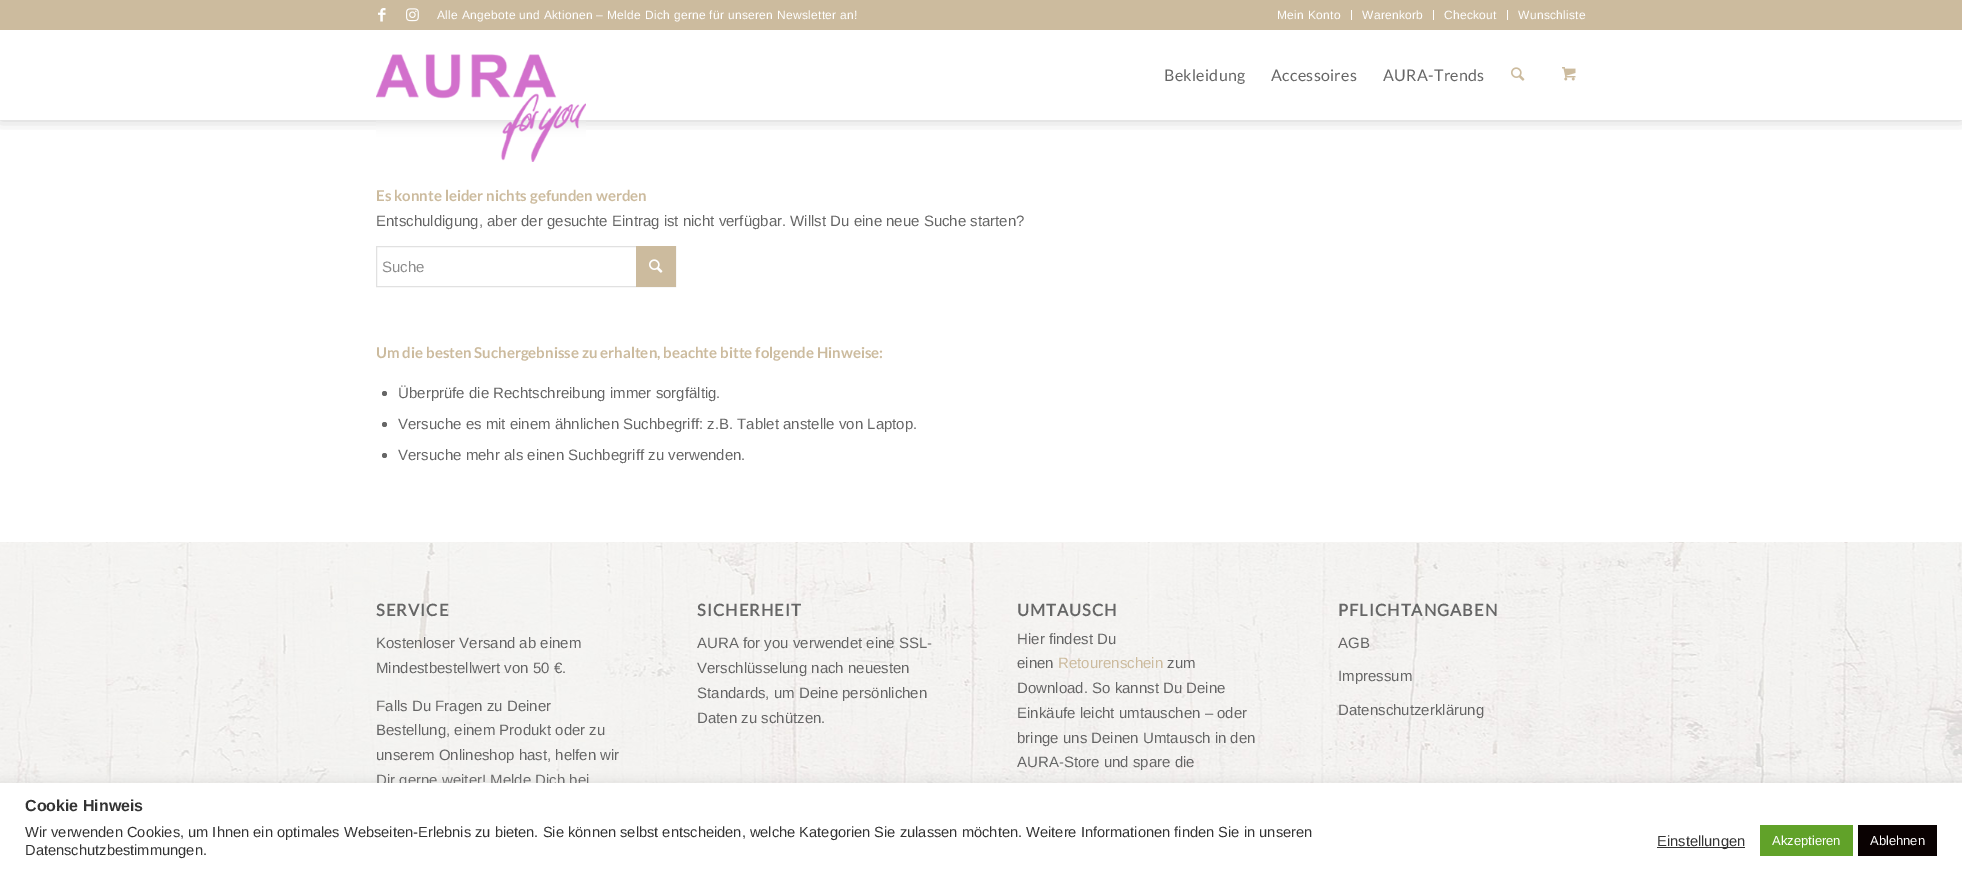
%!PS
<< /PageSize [1962 875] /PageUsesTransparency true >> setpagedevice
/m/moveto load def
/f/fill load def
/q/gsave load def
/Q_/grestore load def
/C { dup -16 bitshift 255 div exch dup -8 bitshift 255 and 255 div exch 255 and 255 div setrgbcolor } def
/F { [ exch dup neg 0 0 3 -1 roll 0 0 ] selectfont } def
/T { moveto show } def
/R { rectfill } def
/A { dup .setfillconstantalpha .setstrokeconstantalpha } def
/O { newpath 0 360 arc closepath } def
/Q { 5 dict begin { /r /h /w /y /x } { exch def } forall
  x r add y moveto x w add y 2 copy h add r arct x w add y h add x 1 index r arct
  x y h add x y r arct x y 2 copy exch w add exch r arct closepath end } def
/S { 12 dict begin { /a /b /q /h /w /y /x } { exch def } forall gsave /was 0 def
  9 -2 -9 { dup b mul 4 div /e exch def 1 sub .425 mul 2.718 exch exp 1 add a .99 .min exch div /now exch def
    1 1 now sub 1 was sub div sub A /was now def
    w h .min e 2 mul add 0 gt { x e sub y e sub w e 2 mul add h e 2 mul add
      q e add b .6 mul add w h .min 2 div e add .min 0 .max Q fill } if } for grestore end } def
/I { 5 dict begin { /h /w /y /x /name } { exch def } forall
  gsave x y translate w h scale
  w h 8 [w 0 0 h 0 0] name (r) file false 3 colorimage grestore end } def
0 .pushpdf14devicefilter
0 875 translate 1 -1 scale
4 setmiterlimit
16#FFFFFF C
0 0 1962 875 R
q
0 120 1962 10 rectclip
16#000000 C
0 0 1962 120 0 7.5 .2 S
Q_
16#CCBB9E C
0 0 1962 30 R
(1.rgb) 378 8 8 14 I
(2.rgb) 406 8 13 14 I
/LiberationSans-Regular 12 F
16#FFFFFF C
437 19 m .3 0 (Alle Angebote und Aktionen – Melde Dich gerne für unseren Newsletter an!) ashow
1351 10 1 10 R
1277 19 m .3 0 (Mein Konto) ashow
1433 10 1 10 R
1362 19 m .3 0 (Warenkorb) ashow
1507 10 1 10 R
1444 19 m .3 0 (Checkout) ashow
1518 19 m .3 0 (Wunschliste) ashow
(3.rgb) 376 54 210 108 I
/Lato-Regular 16 F
16#666666 C
1164 81 m .3 0 (Bekleidung) ashow
1271 81 m .3 0 (Accessoires) ashow
1383 81 m .3 0 (AURA-Trends) ashow
(4.rgb) 1511 67 14 14 I
(5.rgb) 1562 67 14 14 I
/Lato-Bold 15 F
16#CCBB9E C
(Es konnte leider nichts gefunden werden) 376 201 T
/LiberationSans-Regular 15 F
16#666666 C
(Entschuldigung, aber der gesuchte Eintrag ist nicht verfügbar. Willst Du eine neue Suche starten?) 376 226 T
16#E1E1E1 C
376.5 246.5 299 40 rectstroke
16#8D8D8D C
(Suche) 382 272 T
16#CCBB9E C
636 246 40 41 R
(6.rgb) 649 259 14 14 I
/Lato-Bold 15 F
(Um die besten Suchergebnisse zu erhalten, beachte bitte folgende Hinweise:) 376 358 T
16#666666 C
384.5 393.5 2.5 O f
/LiberationSans-Regular 15 F
(Überprüfe die Rechtschreibung immer sorgfältig.) 398 398 T
384.5 424.5 2.5 O f
(Versuche es mit einem ähnlichen Suchbegriff: z.B. Tablet anstelle von Laptop.) 398 429 T
384.5 455.5 2.5 O f
(Versuche mehr als einen Suchbegriff zu verwenden.) 398 460 T
(7.rgb) 0 542 1962 241 I
/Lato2-Bold 16.5 F
376 616 m 1 0 (SERVICE) ashow
/LiberationSans-Regular 15 F
(Kostenloser Versand ab einem) 376 648 T
(Mindestbestellwert von 50 €.) 376 673 T
(Falls Du Fragen zu Deiner) 376 711 T
(Bestellung, einem Produkt oder zu) 376 735 T
(unserem Onlineshop hast, helfen wir) 376 760 T
(Dir gerne weiter! Melde Dich bei) 376 785 T
/Lato2-Bold 16.5 F
697 616 m 1 0 (SICHERHEIT) ashow
/LiberationSans-Regular 15 F
(AURA for you verwendet eine SSL-) 697 648 T
(Verschlüsselung nach neuesten) 697 673 T
(Standards, um Deine persönlichen) 697 698 T
(Daten zu schützen.) 697 723 T
/Lato2-Bold 16.5 F
1017 616 m 1 0 (UMTAUSCH) ashow
/LiberationSans-Regular 15 F
(Hier findest Du) 1017 644 T
(einen) 1017 668 T
16#CCBB9E C
(Retourenschein) 1058 668 T
16#666666 C
(zum) 1167 668 T
(Download. So kannst Du Deine) 1017 693 T
(Einkäufe leicht umtauschen – oder) 1017 718 T
(bringe uns Deinen Umtausch in den) 1017 743 T
(AURA-Store und spare die) 1017 767 T
/Lato2-Bold 16.5 F
1338 616 m 1 0 (PFLICHTANGABEN) ashow
/LiberationSans-Regular 15 F
(AGB) 1338 648 T
(Impressum) 1338 681 T
(Datenschutzerklärung) 1338 715 T
16#ACABAB C
0 782 1962 92 0 5 .3 S
16#FFFFFF C
0 783 1962 92 R
/LiberationSans-Bold 16 F
16#333333 C
(Cookie Hinweis) 25 811 T
/LiberationSans-Regular 14.67 F
(Wir verwenden Cookies, um Ihnen ein optimales Webseiten-Erlebnis zu bieten. Sie können selbst entscheiden, welche Kategorien Sie zulassen möchten. Weitere Informationen finden Sie in unseren) 25 837 T
(Datenschutzbestimmungen.) 25 855 T
1657 847 88 1 R
(Einstellungen) 1657 846 T
16#61A229 C
1760 825 93 31 R
/LiberationSans-Regular 13 F
16#FFFFFF C
(Akzeptieren) 1772 845 T
16#0A0202 C
1858 825 79 31 R
16#FFFFFF C
(Ablehnen) 1870 845 T
.poppdf14devicefilter showpage
